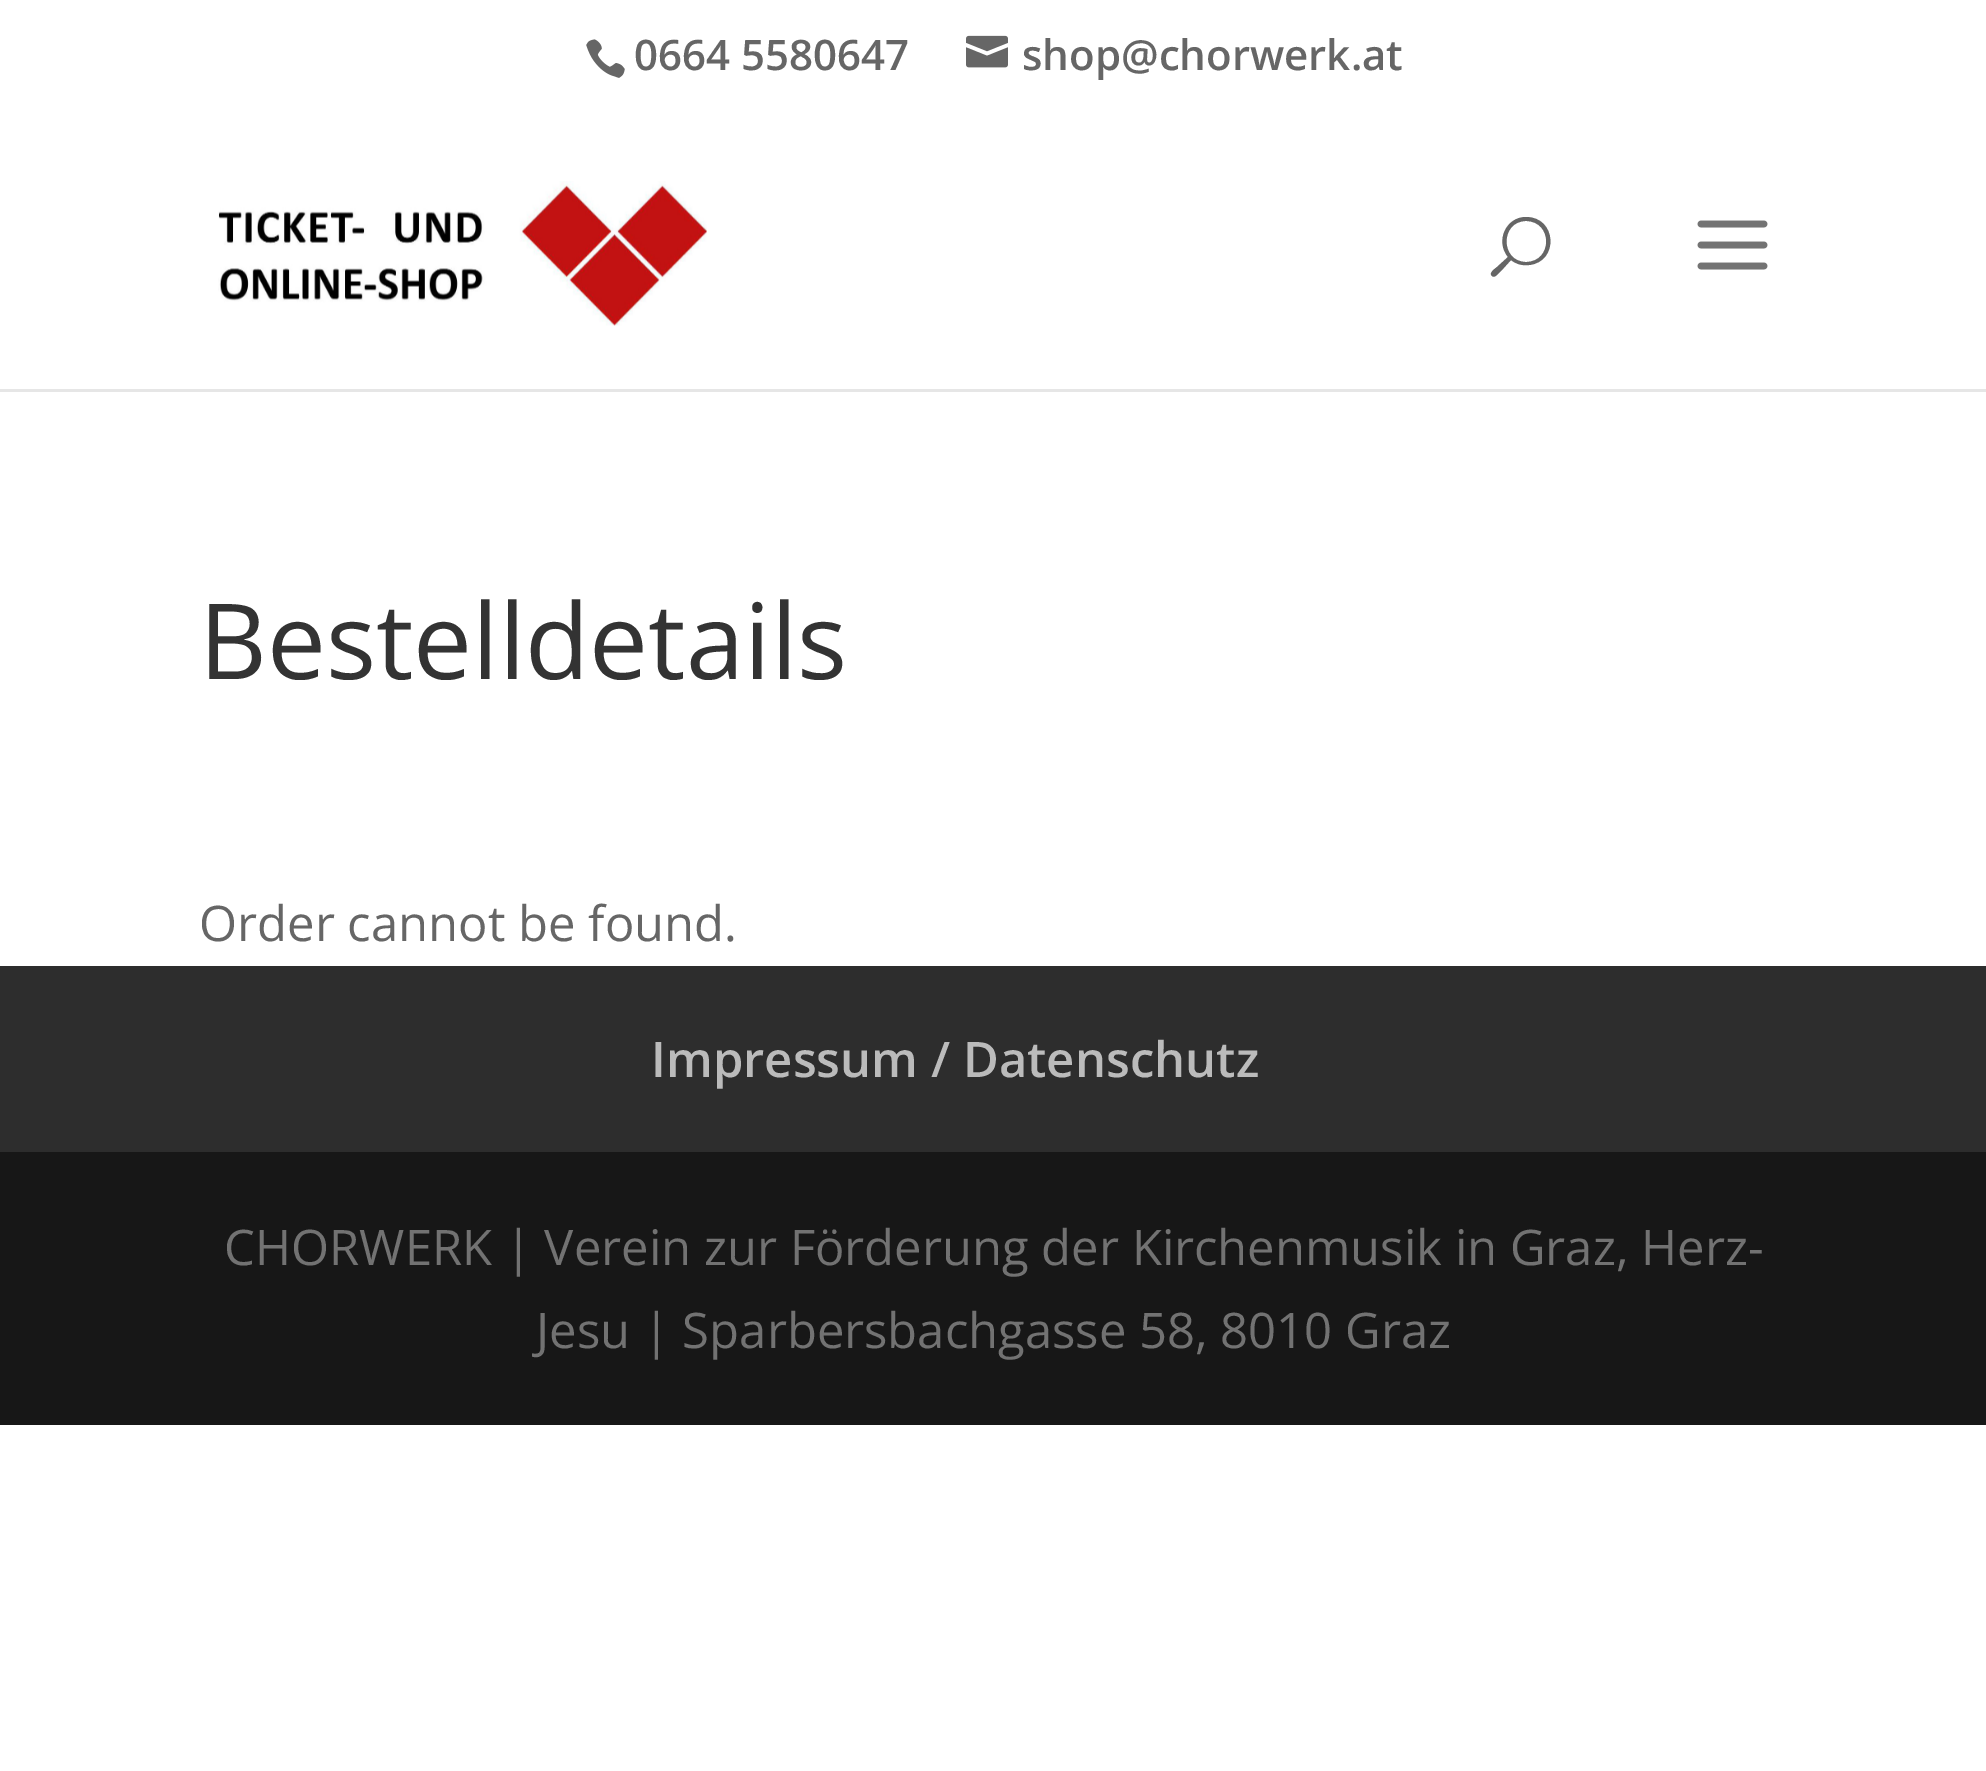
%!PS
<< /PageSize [1986 1771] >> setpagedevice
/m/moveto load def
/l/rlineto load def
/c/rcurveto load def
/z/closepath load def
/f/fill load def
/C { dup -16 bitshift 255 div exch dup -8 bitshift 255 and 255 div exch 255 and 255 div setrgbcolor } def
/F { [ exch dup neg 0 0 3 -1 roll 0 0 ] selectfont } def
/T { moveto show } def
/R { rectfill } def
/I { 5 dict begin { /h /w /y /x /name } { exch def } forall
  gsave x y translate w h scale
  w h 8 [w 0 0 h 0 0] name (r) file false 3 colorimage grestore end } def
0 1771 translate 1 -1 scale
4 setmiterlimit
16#FFFFFF C
0 0 1986 1771 R
(1.rgb) 586 39 39 39 I
/OpenSans-SemiBold 42 F
16#666666 C
(0664 5580647) 634 70 T
(2.rgb) 966 35 42 33 I
(shop@chorwerk.at) 1022 70 T
16#E6E6E6 C
0 389 1986 3 R
(3.rgb) 218 181 489 145 I
16#666666 C
1526 217 m -20 0 -31 24 -18 40 c -11 10 l -1 1 -9 6 -5 9 c 3 3 7 -4 9 -5 c 10 -11 l 5 4 11 6 18 5 c 30 -3 28 -48 -3 -48 c z 1526 262 m -26 0 -26 -41 0 -41 c 27 0 27 41 0 41 c z f
(4.rgb) 1697 220 71 50 I
/OpenSans-Regular 105 F
16#333333 C
(Bestelldetails) 199 679 T
/OpenSans-Regular 49 F
16#666666 C
(Order cannot be found.) 199 941 T
16#2D2D2D C
0 966 1986 186 R
/OpenSans-SemiBold 49 F
16#BBBBBB C
(Impressum / Datenschutz) 651 1077 T
16#171717 C
0 1152 1986 273 R
/OpenSans-Regular 49 F
16#727272 C
(CHORWERK | Verein zur Förderung der Kirchenmusik in Graz, Herz-) 224 1265 T
(Jesu | Sparbersbachgasse 58, 8010 Graz) 536 1348 T
showpage
